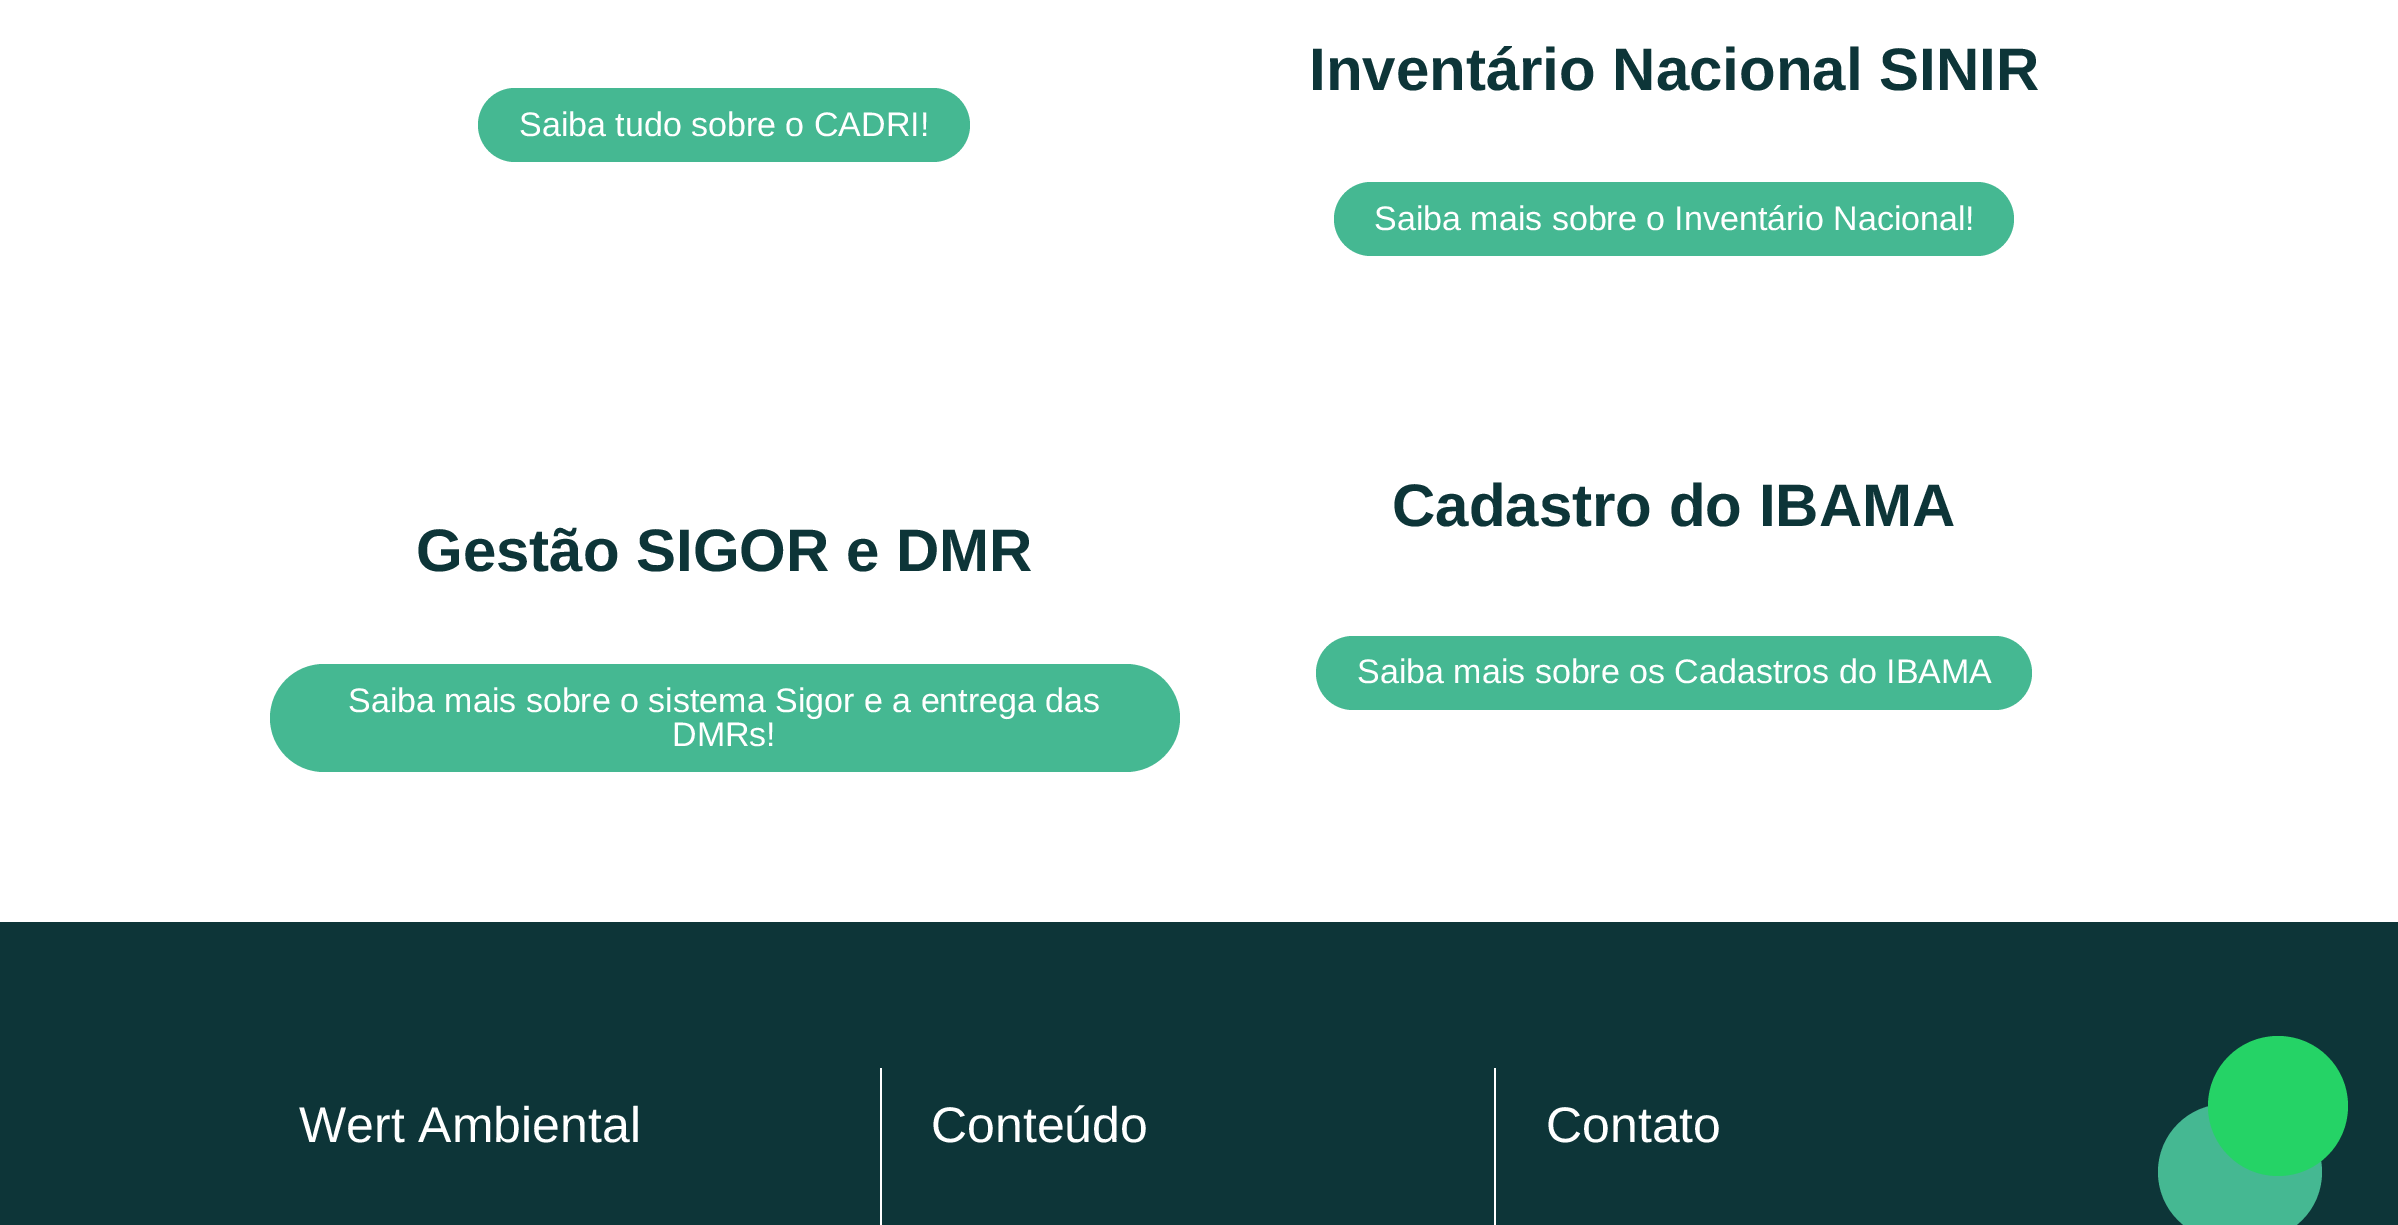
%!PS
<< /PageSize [2398 1225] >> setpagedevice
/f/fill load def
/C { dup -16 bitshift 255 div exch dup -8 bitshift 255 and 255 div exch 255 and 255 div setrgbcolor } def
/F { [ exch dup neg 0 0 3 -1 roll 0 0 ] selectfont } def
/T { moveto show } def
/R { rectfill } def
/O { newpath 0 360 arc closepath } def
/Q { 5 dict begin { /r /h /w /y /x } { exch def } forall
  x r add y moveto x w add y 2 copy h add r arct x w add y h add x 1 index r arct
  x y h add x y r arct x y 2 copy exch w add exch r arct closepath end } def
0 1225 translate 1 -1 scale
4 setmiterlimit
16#FFFFFF C
0 0 2398 1225 R
16#45B892 C
478 88 492 74 37 Q f
/LiberationSans-Regular 34 F
16#FFFFFF C
(Saiba tudo sobre o CADRI!) 519 136 T
/LiberationSans-Bold 60 F
16#0D3538 C
(Inventário Nacional SINIR) 1309 90 T
16#45B892 C
1334 182 680 74 37 Q f
/LiberationSans-Regular 34 F
16#FFFFFF C
(Saiba mais sobre o Inventário Nacional!) 1374 230 T
/LiberationSans-Bold 60 F
16#0D3538 C
(Gestão SIGOR e DMR) 416 571 T
16#45B892 C
270 664 910 108 54 Q f
/LiberationSans-Regular 34 F
16#FFFFFF C
(Saiba mais sobre o sistema Sigor e a entrega das) 348 712 T
(DMRs!) 672 746 T
/LiberationSans-Bold 60 F
16#0D3538 C
(Cadastro do IBAMA) 1392 526 T
16#45B892 C
1316 636 716 74 37 Q f
/LiberationSans-Regular 34 F
16#FFFFFF C
(Saiba mais sobre os Cadastros do IBAMA) 1357 683 T
16#0D3538 C
0 922 2398 303 R
16#FFFFFF C
880 1068 2 157 R
/LiberationSans-Regular 50 F
(Wert Ambiental) 299 1142 T
1494 1068 2 157 R
(Conteúdo) 931 1142 T
(Contato) 1546 1142 T
16#45B892 C
2158 1104 164 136 68 Q f
16#25D366 C
2278 1106 70 O f
showpage
